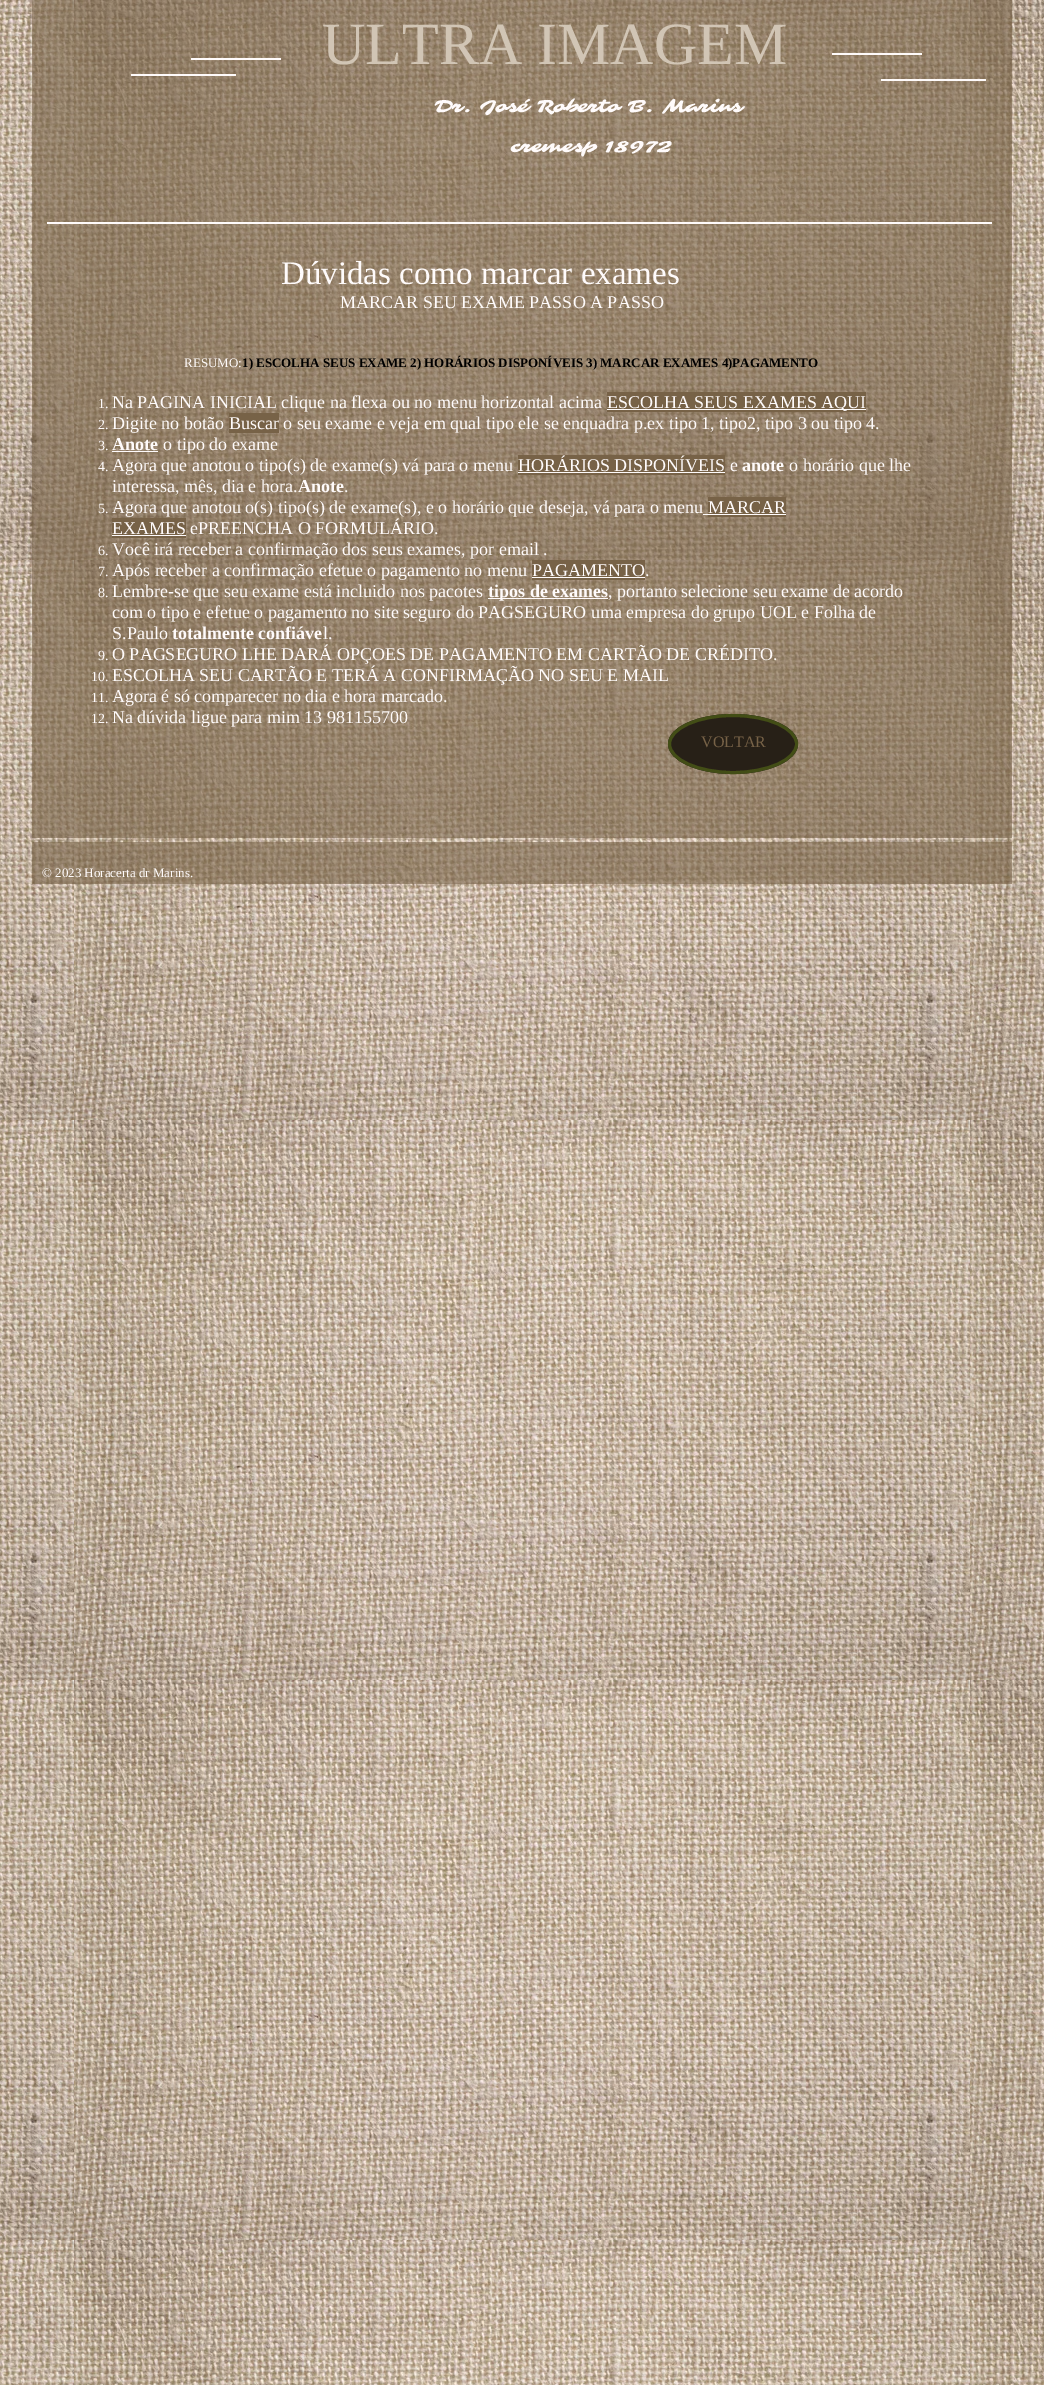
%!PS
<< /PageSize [1044 2385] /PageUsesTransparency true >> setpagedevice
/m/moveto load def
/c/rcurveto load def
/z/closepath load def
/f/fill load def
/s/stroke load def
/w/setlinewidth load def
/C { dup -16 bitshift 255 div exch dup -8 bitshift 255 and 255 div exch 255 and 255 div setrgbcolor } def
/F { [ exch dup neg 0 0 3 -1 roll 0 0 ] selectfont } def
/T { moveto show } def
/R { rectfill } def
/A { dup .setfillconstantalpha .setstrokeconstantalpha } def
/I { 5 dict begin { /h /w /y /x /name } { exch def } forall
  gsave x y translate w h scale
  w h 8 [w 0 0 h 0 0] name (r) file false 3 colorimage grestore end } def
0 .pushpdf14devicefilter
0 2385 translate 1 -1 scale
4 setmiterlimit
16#FFFFFF C
0 0 1044 2385 R
(1.rgb) 0 0 1044 2385 I
0.6 A
16#776247 C
32 0 980 229 R
/LiberationSerif-Regular 60 F
1 A
16#D1C5B5 C
(ULTRA IMAGEM) 322 64 T
16#FFFBFB C
832 53 90 2 R
191 58 90 2 R
131 74 105 2 R
881 79 105 2 R
/Sarina-Regular 18 F
(Dr. José Roberto B. Marins) 434 112 T
(cremesp 18972) 512 152 T
47 222 945 2 R
0.6 A
16#776247 C
32 229 980 609 R
/LiberationSerif-Regular 33 F
1 A
16#FFFBFB C
(Dúvidas como marcar exames) 281 284 T
/LiberationSerif-Regular 18 F
(MARCAR SEU EXAME PASSO A PASSO) 340 308 T
/LiberationSerif-Regular 13 F
(RESUMO:) 184 367 T
/LiberationSerif-Bold 13 F
16#000000 C
(1\) ESCOLHA SEUS EXAME 2\) HORÁRIOS DISPONÍVEIS 3\) MARCAR EXAMES 4\)PAGAMENTO) 242 367 T
/LiberationSerif-Regular 14 F
16#FFFBFB C
(1.) 98 408 T
/LiberationSerif-Regular 18 F
(Na PAGINA INICIAL clique na flexa ou no menu horizontal acima) 112 408 T
16#776247 C
607 392 259 20 R
16#FFFBFB C
607 409 259 1 R
(ESCOLHA SEUS EXAMES AQUI) 607 408 T
/LiberationSerif-Regular 14 F
(2.) 98 429 T
/LiberationSerif-Regular 18 F
(Digite no botão) 112 429 T
16#776247 C
229 413 50 20 R
16#FFFBFB C
(Buscar o seu exame e veja em qual tipo ele se enquadra p.ex tipo 1, tipo2, tipo 3 ou tipo 4.) 229 429 T
/LiberationSerif-Regular 14 F
(3.) 98 450 T
/LiberationSerif-Bold 18 F
(Anote) 112 450 T
112 451 46 1 R
/LiberationSerif-Regular 18 F
(o tipo do exame) 163 450 T
/LiberationSerif-Regular 14 F
(4.) 98 471 T
/LiberationSerif-Regular 18 F
(Agora que anotou o tipo\(s\) de exame\(s\) vá para o menu) 112 471 T
16#776247 C
518 455 207 20 R
16#FFFBFB C
(HORÁRIOS DISPONÍVEIS e) 518 471 T
518 472 207 1 R
/LiberationSerif-Bold 18 F
(anote) 742 471 T
/LiberationSerif-Regular 18 F
(o horário que lhe) 789 471 T
(interessa, mês, dia e hora.) 112 492 T
/LiberationSerif-Bold 18 F
(Anote) 298 492 T
/LiberationSerif-Regular 18 F
(.) 344 492 T
/LiberationSerif-Regular 14 F
(5.) 98 513 T
/LiberationSerif-Regular 18 F
(Agora que anotou o\(s\) tipo\(s\) de exame\(s\), e o horário que deseja, vá para o menu) 112 513 T
16#776247 C
708 497 78 20 R
16#FFFBFB C
(MARCAR) 708 513 T
703 514 5 1 R
708 514 78 1 R
16#776247 C
112 518 74 20 R
16#FFFBFB C
(EXAMES ePREENCHA O FORMULÁRIO.) 112 534 T
112 535 74 1 R
/LiberationSerif-Regular 14 F
(6.) 98 555 T
/LiberationSerif-Regular 18 F
(Você irá receber a confirmação dos seus exames, por email .) 112 555 T
/LiberationSerif-Regular 14 F
(7.) 98 576 T
/LiberationSerif-Regular 18 F
(Após receber a confirmação efetue o pagamento no menu) 112 576 T
16#776247 C
532 560 113 20 R
16#FFFBFB C
(PAGAMENTO.) 532 576 T
532 577 113 1 R
/LiberationSerif-Regular 14 F
(8.) 98 597 T
/LiberationSerif-Regular 18 F
(Lembre-se que seu exame está incluido nos pacotes) 112 597 T
488 598 120 1 R
/LiberationSerif-Bold 18 F
(tipos de exames) 488 597 T
/LiberationSerif-Regular 18 F
(, portanto selecione seu exame de acordo) 608 597 T
(com o tipo e efetue o pagamento no site seguro do PAGSEGURO uma empresa do grupo UOL e Folha de) 112 618 T
(S.Paulo) 112 639 T
/LiberationSerif-Bold 18 F
(totalmente confiáve) 172 639 T
/LiberationSerif-Regular 18 F
(l.) 323 639 T
/LiberationSerif-Regular 14 F
(9.) 98 660 T
/LiberationSerif-Regular 18 F
(O PAGSEGURO LHE DARÁ OPÇOES DE PAGAMENTO EM CARTÃO DE CRÉDITO.) 112 660 T
/LiberationSerif-Regular 14 F
(10.) 91 681 T
/LiberationSerif-Regular 18 F
(ESCOLHA SEU CARTÃO E TERÁ A CONFIRMAÇÃO NO SEU E MAIL) 112 681 T
/LiberationSerif-Regular 14 F
(11.) 91 702 T
/LiberationSerif-Regular 18 F
(Agora é só comparecer no dia e hora marcado.) 112 702 T
/LiberationSerif-Regular 14 F
(12.) 91 723 T
/LiberationSerif-Regular 18 F
(Na dúvida ligue para mim 13 981155700) 112 723 T
16#272017 C
733 714 m 36 0 65 13.5 65 30 c 0 16.5 -29 30 -65 30 c -36 0 -65 -13.5 -65 -30 c 0 -16.5 29 -30 65 -30 c z f
16#434E16 C
3 w
733 715.5 m 35 0 63.5 13 63.5 28.5 c 0 15.5 -28.5 28.5 -63.5 28.5 c -35 0 -63.5 -13 -63.5 -28.5 c 0 -15.5 28.5 -28.5 63.5 -28.5 c z s
/LiberationSerif-Regular 16 F
16#776247 C
(VOLTAR) 701 747 T
0.6 A
32 842 980 42 R
/LiberationSerif-Regular 13 F
1 A
16#FFFBFB C
(© 2023 Horacerta dr Marins.) 42 877 T
.poppdf14devicefilter showpage
